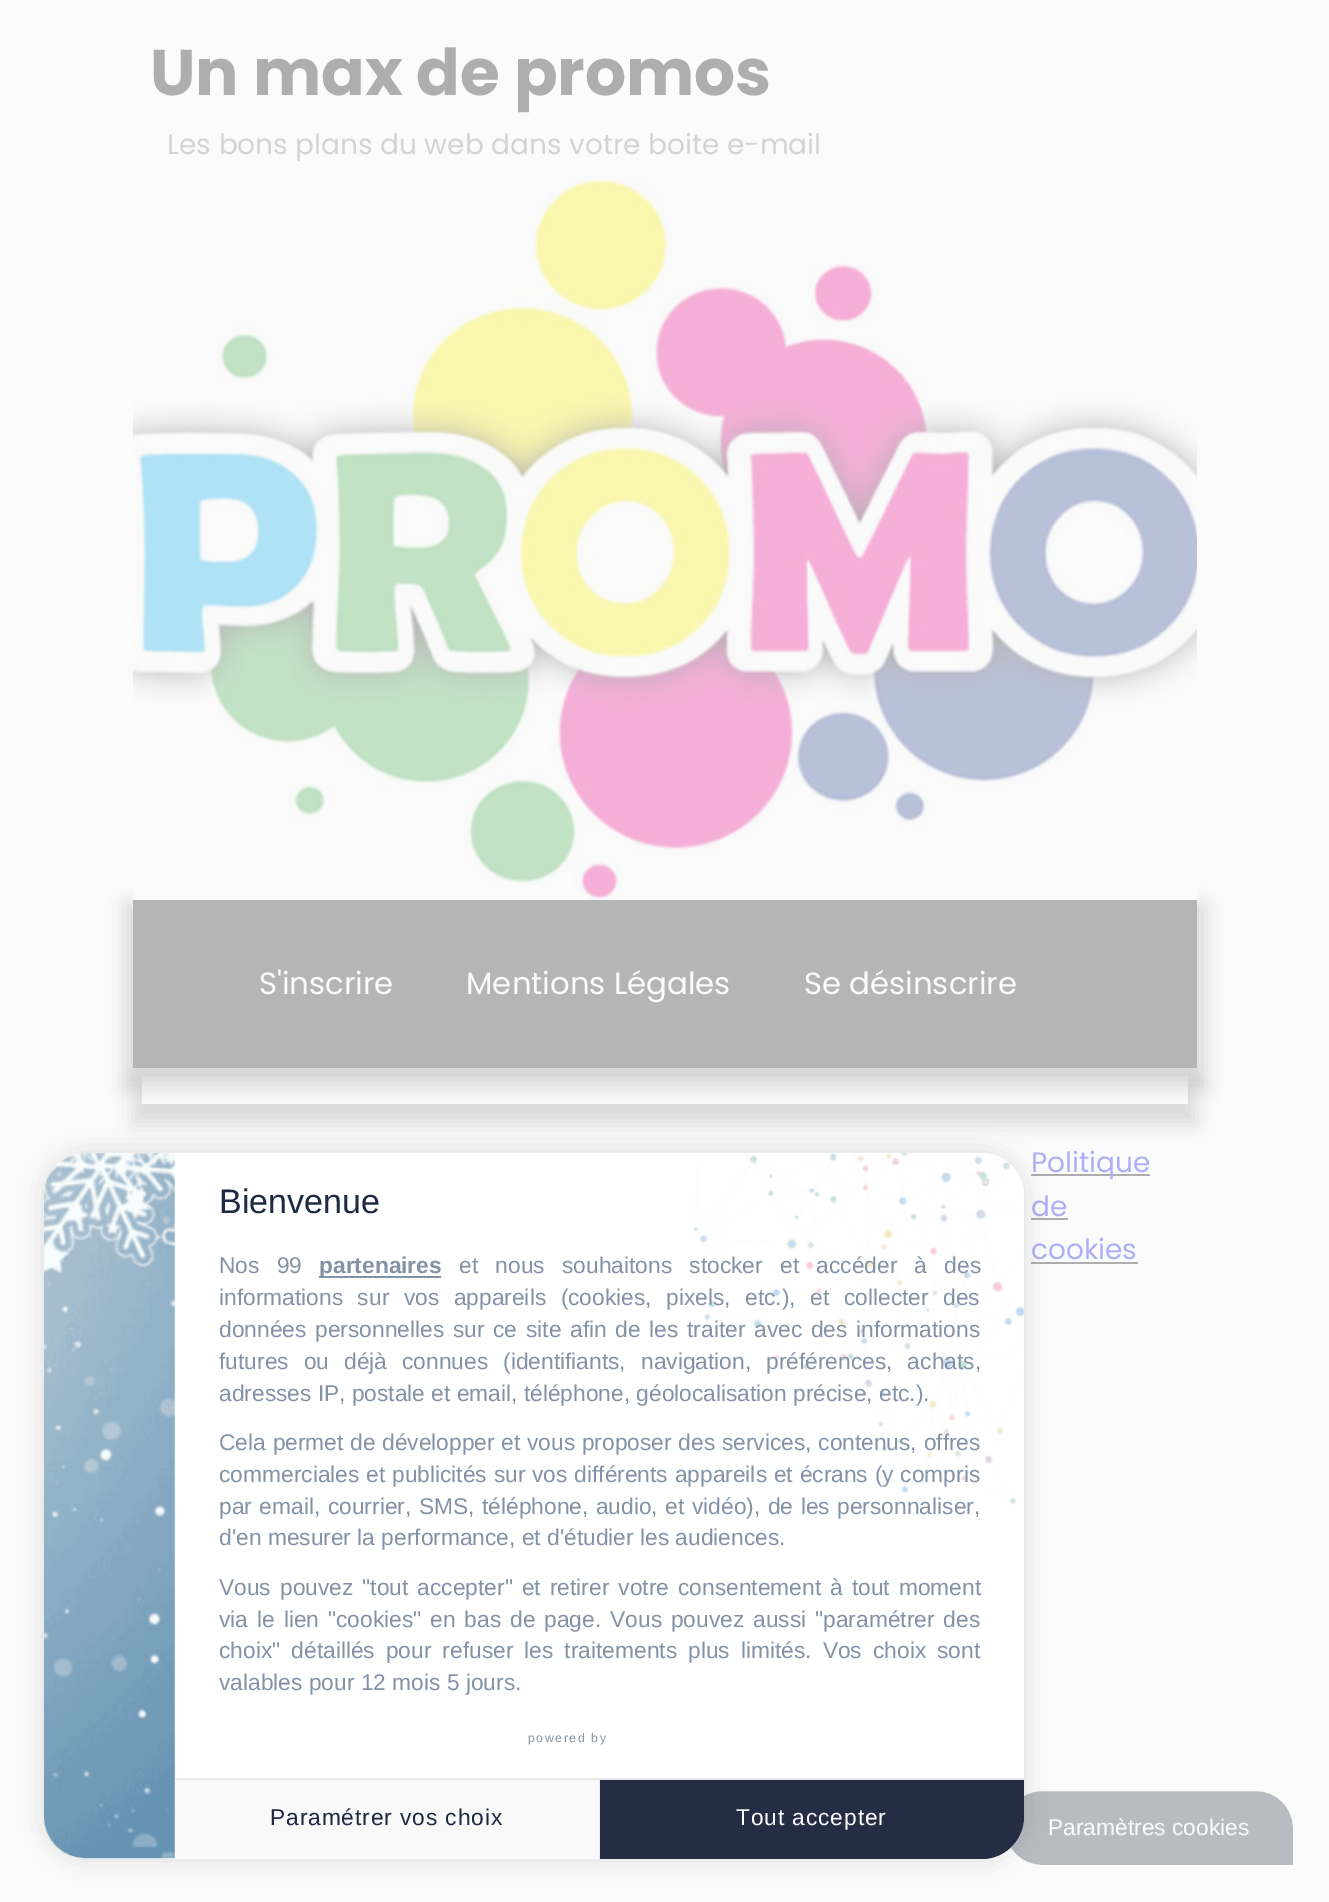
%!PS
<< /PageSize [1329 1902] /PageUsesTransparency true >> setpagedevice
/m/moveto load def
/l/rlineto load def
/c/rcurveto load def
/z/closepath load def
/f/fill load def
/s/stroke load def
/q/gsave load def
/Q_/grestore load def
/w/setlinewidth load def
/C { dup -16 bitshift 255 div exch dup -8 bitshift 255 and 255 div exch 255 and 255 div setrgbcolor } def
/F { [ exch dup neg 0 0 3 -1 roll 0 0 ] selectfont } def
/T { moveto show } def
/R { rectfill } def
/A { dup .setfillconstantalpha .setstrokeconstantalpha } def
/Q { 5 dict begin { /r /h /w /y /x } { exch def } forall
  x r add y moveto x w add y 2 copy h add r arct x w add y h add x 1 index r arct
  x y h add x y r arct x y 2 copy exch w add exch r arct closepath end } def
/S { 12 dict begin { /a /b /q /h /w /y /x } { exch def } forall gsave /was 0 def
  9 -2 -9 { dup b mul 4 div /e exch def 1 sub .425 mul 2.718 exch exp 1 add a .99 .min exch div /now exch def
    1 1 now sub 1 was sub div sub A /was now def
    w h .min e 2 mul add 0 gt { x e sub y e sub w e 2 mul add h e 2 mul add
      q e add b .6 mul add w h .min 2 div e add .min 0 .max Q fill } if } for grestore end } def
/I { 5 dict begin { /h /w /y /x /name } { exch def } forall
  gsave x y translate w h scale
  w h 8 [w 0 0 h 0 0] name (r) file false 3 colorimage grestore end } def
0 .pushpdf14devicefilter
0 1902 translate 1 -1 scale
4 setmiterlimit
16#FBFBFB C
0 0 1329 1902 R
/Poppins-Bold 64.5 F
16#AEAEAE C
(Un max de promos) 150 95 T
/Poppins-Regular 28 F
16#D3D3D3 C
(Les bons plans du web dans votre boite e-mail) 167 154 T
16#AEAEAE C
124 903 1082 186 0 9 .4 S
(1.rgb) 133 178 1064 722 I
16#B5B5B5 C
133 900 1064 168 R
/Poppins-Regular 30.75 F
16#FBFBFB C
(S'inscrire) 259 994 T
(Mentions Légales) 466 994 T
(Se désinscrire) 804 994 T
q
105 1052 m 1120 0 l 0 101 l -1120 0 l z 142 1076 m 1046 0 l 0 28 l -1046 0 l z eoclip newpath
16#AEAEAE C
133 1080 1064 45 0 9 .4 S
Q_
16#AEAEAE C
1031 1174 119 2 R
/Poppins-Regular 28 F
16#AEAEF6 C
(Politique) 1031 1172 T
(de) 1031 1216 T
16#AEAEAE C
1031 1218 37 2 R
16#AEAEF6 C
(cookies) 1031 1259 T
16#AEAEAE C
1031 1262 107 2 R
16#B8BBC2 C
1042 1790 m 214 0 l 21 0 38 17 38 38 c 0 38 l -252 0 l -21 0 -38 -17 -38 -38 c 0 -21 17 -38 38 -38 c z q f Q_
16#FBFBFB C
2 w
s
16#000000 C
44 1153 980 706 42 13 .12 S
16#FFFFFF C
44 1153 980 706 42 Q f
86 1153 m 89 0 l 0 706 l -89 0 l -23 0 -42 -19 -42 -42 c 0 -622 l 0 -23 19 -42 42 -42 c z f
(2.rgb) 44 1153 132 706 I
(3.rgb) 693 1153 331 352 I
/LiberationSans-Regular 34 F
16#202942 C
(Bienvenue) 219 1213 T
/LiberationSans-Regular 22.75 F
16#8492A6 C
219 1273 m 11 0 32 (Nos 99) widthshow
319 1276 122 2 R
/LiberationSans-Bold 22.75 F
(partenaires) 319 1273 T
/LiberationSans-Regular 22.75 F
459 1273 m 11 0 32 (et nous souhaitons stocker et accéder à des) widthshow
219 1305 m 8.25 0 32 (informations sur vos appareils \(cookies, pixels, etc.\), et collecter des) widthshow
219 1337 m 2.4 0 32 (données personnelles sur ce site afin de les traiter avec des informations) widthshow
219 1369 m 8.75 0 32 (futures ou déjà connues \(identifiants, navigation, préférences, achats,) widthshow
(adresses IP, postale et email, téléphone, géolocalisation précise, etc.\).) 219 1401 T
219 1450 m .4 0 32 (Cela permet de développer et vous proposer des services, contenus, offres) widthshow
219 1482 m .5 0 32 (commerciales et publicités sur vos différents appareils et écrans \(y compris) widthshow
219 1514 m 1.25 0 32 (par email, courrier, SMS, téléphone, audio, et vidéo\), de les personnaliser,) widthshow
(d'en mesurer la performance, et d'étudier les audiences.) 219 1545 T
219 1595 m 2.75 0 32 (Vous pouvez "tout accepter" et retirer votre consentement à tout moment) widthshow
219 1627 m 2.6 0 32 (via le lien "cookies" en bas de page. Vous pouvez aussi "paramétrer des) widthshow
219 1658 m 4.75 0 32 (choix" détaillés pour refuser les traitements plus limités. Vos choix sont) widthshow
(valables pour 12 mois 5 jours.) 219 1690 T
/LiberationSans-Regular 12.25 F
528 1742 m 1.6 0 (powered by) ashow
16#F9F9F9 C
175 1780 424 79 R
16#EAEAEA C
175 1778 425 2 R
599 1778 1 81 R
/LiberationSans-Regular 22.75 F
16#202942 C
270 1825 m .9 0 (Paramétrer vos choix) ashow
16#252D45 C
600 1778 m 424 0 l 0 39 l 0 23 -19 42 -42 42 c -382 0 l z f
16#EAEAEA C
600 1778 424 2 R
16#FBFBFB C
736 1825 m .9 0 (Tout accepter) ashow
(Paramètres cookies) 1048 1835 T
.poppdf14devicefilter showpage
